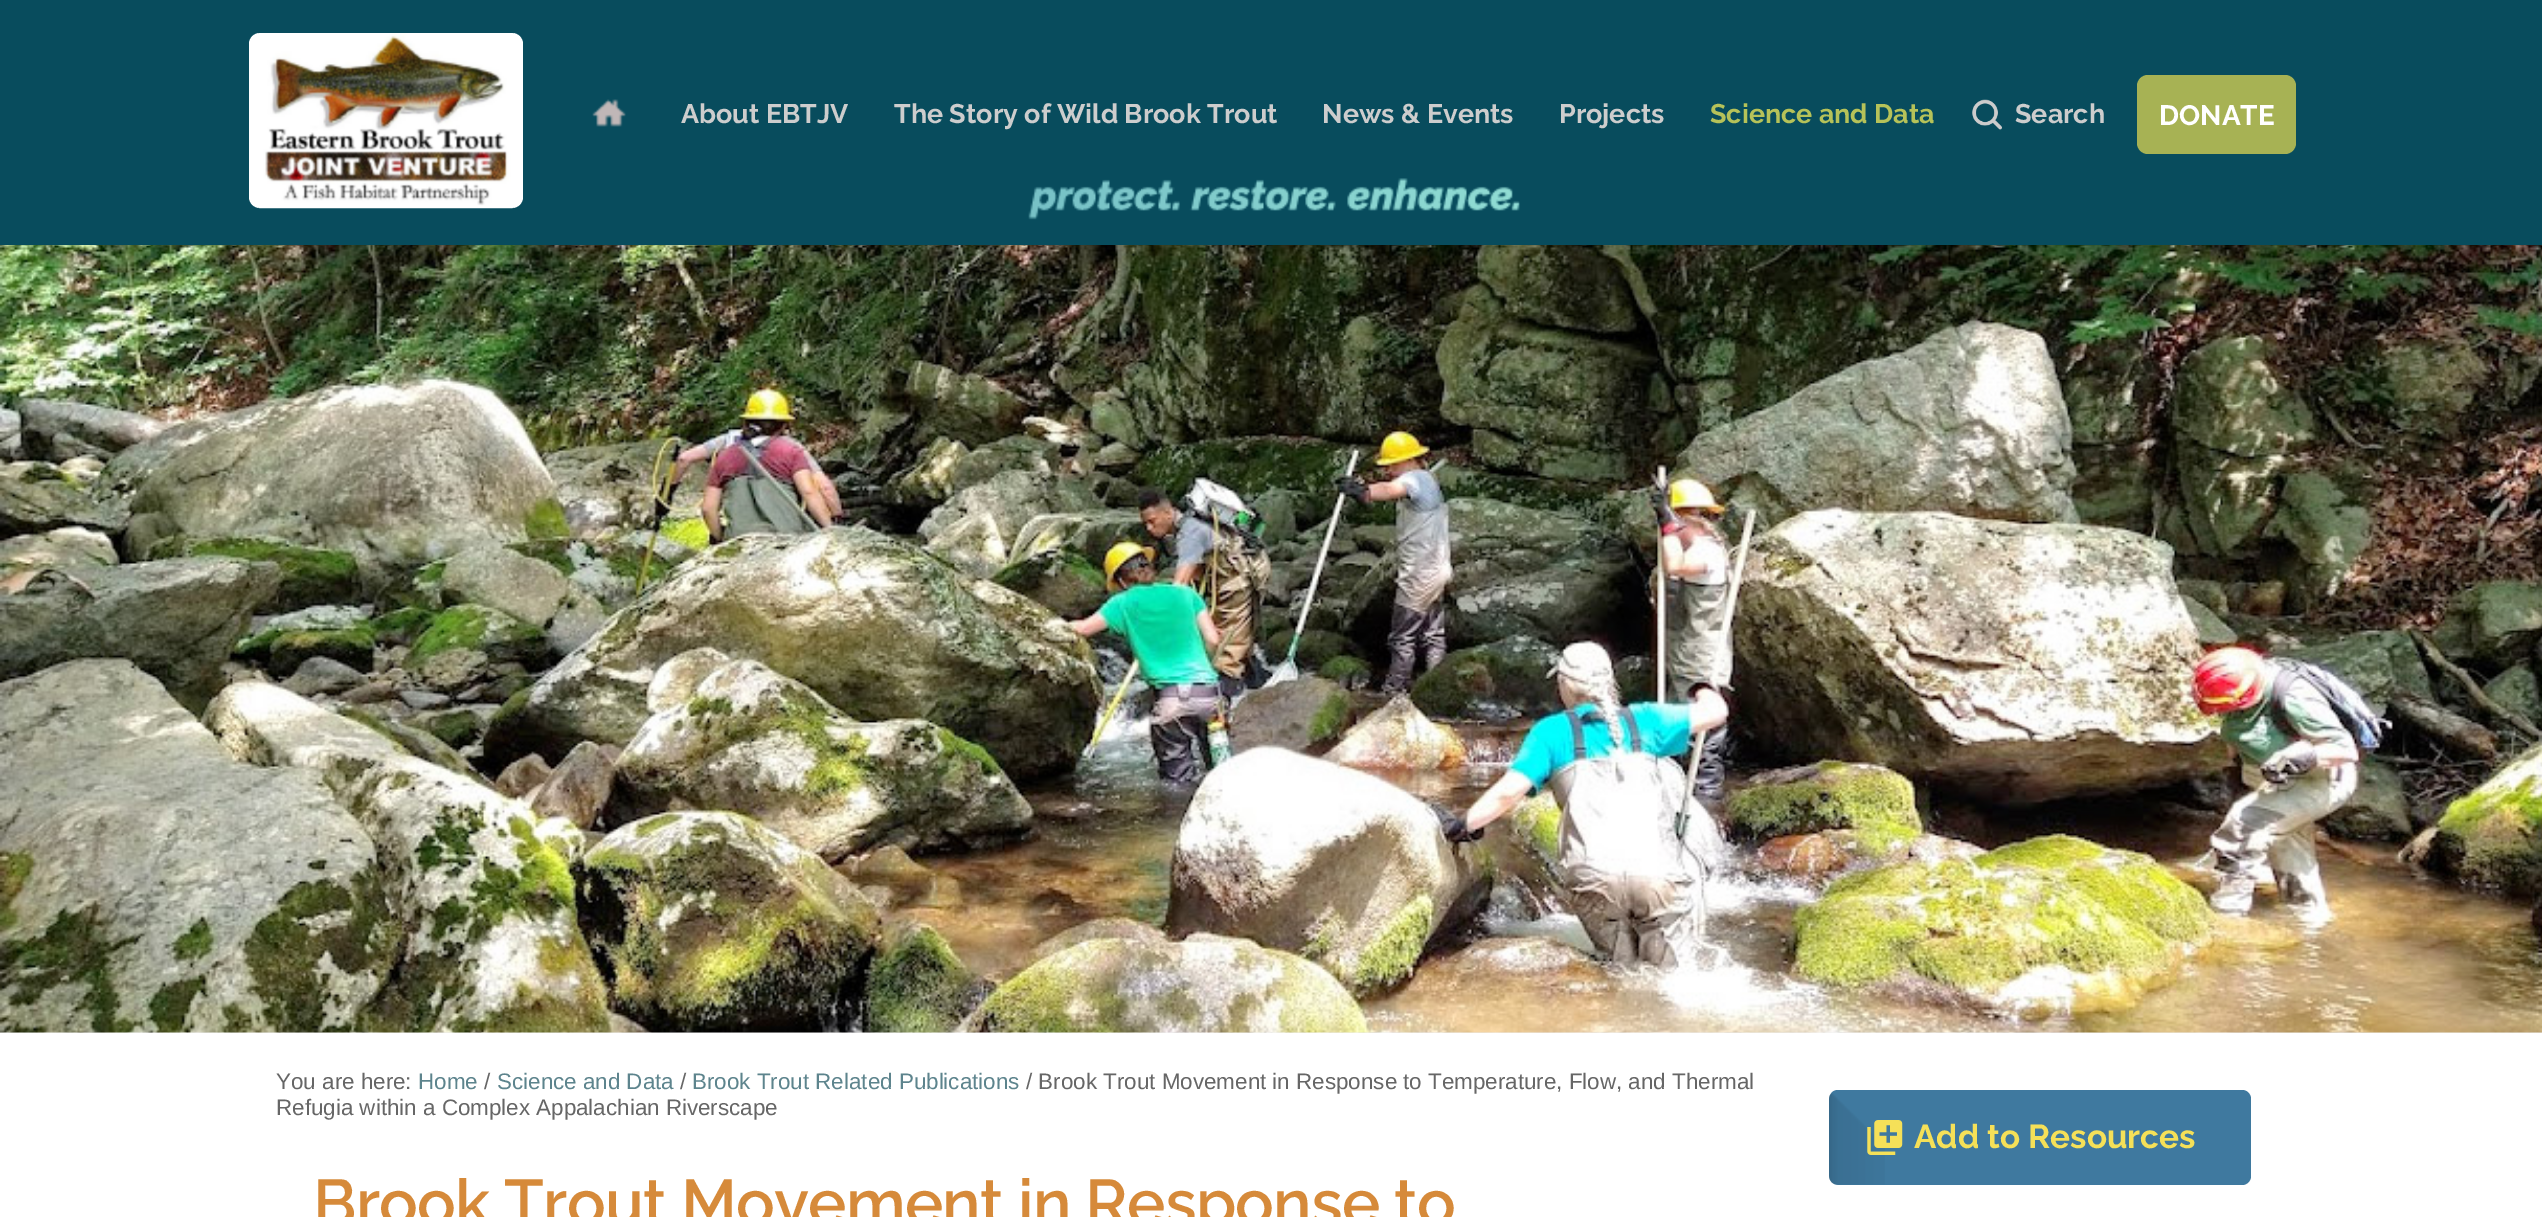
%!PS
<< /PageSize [2542 1217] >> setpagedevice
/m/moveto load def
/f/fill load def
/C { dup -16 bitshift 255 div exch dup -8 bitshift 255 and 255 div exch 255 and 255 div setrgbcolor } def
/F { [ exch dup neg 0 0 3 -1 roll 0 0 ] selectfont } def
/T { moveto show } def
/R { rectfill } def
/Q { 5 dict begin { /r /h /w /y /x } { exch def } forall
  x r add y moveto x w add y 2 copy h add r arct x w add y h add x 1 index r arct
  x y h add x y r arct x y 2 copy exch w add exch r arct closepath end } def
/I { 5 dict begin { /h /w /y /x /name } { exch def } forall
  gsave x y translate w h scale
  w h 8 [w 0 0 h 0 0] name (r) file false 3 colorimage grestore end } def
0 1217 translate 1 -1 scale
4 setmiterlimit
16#FFFFFF C
0 0 2542 1217 R
16#084C5D C
0 0 2542 245 R
(1.rgb) 1028 178 492 42 I
16#FFFFFF C
249 33 274 175 11 Q f
(2.rgb) 258 33 256 176 I
(3.rgb) 592 99 34 28 I
/Raleway-Bold 26.9 F
16#CDCDCD C
(About EBTJV) 681 123 T
(The Story of Wild Brook Trout) 894 123 T
(News & Events) 1322 123 T
(Projects) 1559 123 T
16#B6C259 C
(Science and Data) 1710 123 T
(4.rgb) 1972 99 30 31 I
16#CDCDCD C
(Search) 2015 123 T
16#A7B254 C
2137 75 159 79 11 Q f
/Raleway-Bold 28 F
16#FFFFFF C
(DONATE) 2159 125 T
16#EFEFEF C
0 1032 2542 1 R
(5.rgb) 0 245 2542 788 I
/LiberationSans-Regular 22.4 F
16#666666 C
(You are here:) 276 1089 T
16#5D848D C
(Home) 418 1089 T
16#666666 C
(/) 484 1089 T
16#5D848D C
(Science and Data) 497 1089 T
16#666666 C
(/) 680 1089 T
16#5D848D C
(Brook Trout Related Publications) 692 1089 T
16#666666 C
(/ Brook Trout Movement in Response to Temperature, Flow, and Thermal) 1026 1089 T
(Refugia within a Complex Appalachian Riverscape) 276 1115 T
/Raleway-SemiBold 64.4 F
16#D68A3A C
313 1225 m -.8 0 (Brook Trout Movement in Response to) ashow
16#3F799F C
1829 1090 422 95 9 Q f
(6.rgb) 1829 1093 56 92 I
(7.rgb) 1867 1120 36 35 I
/Raleway-Bold 33.25 F
16#F5E058 C
(Add to Resources) 1914 1148 T
showpage
